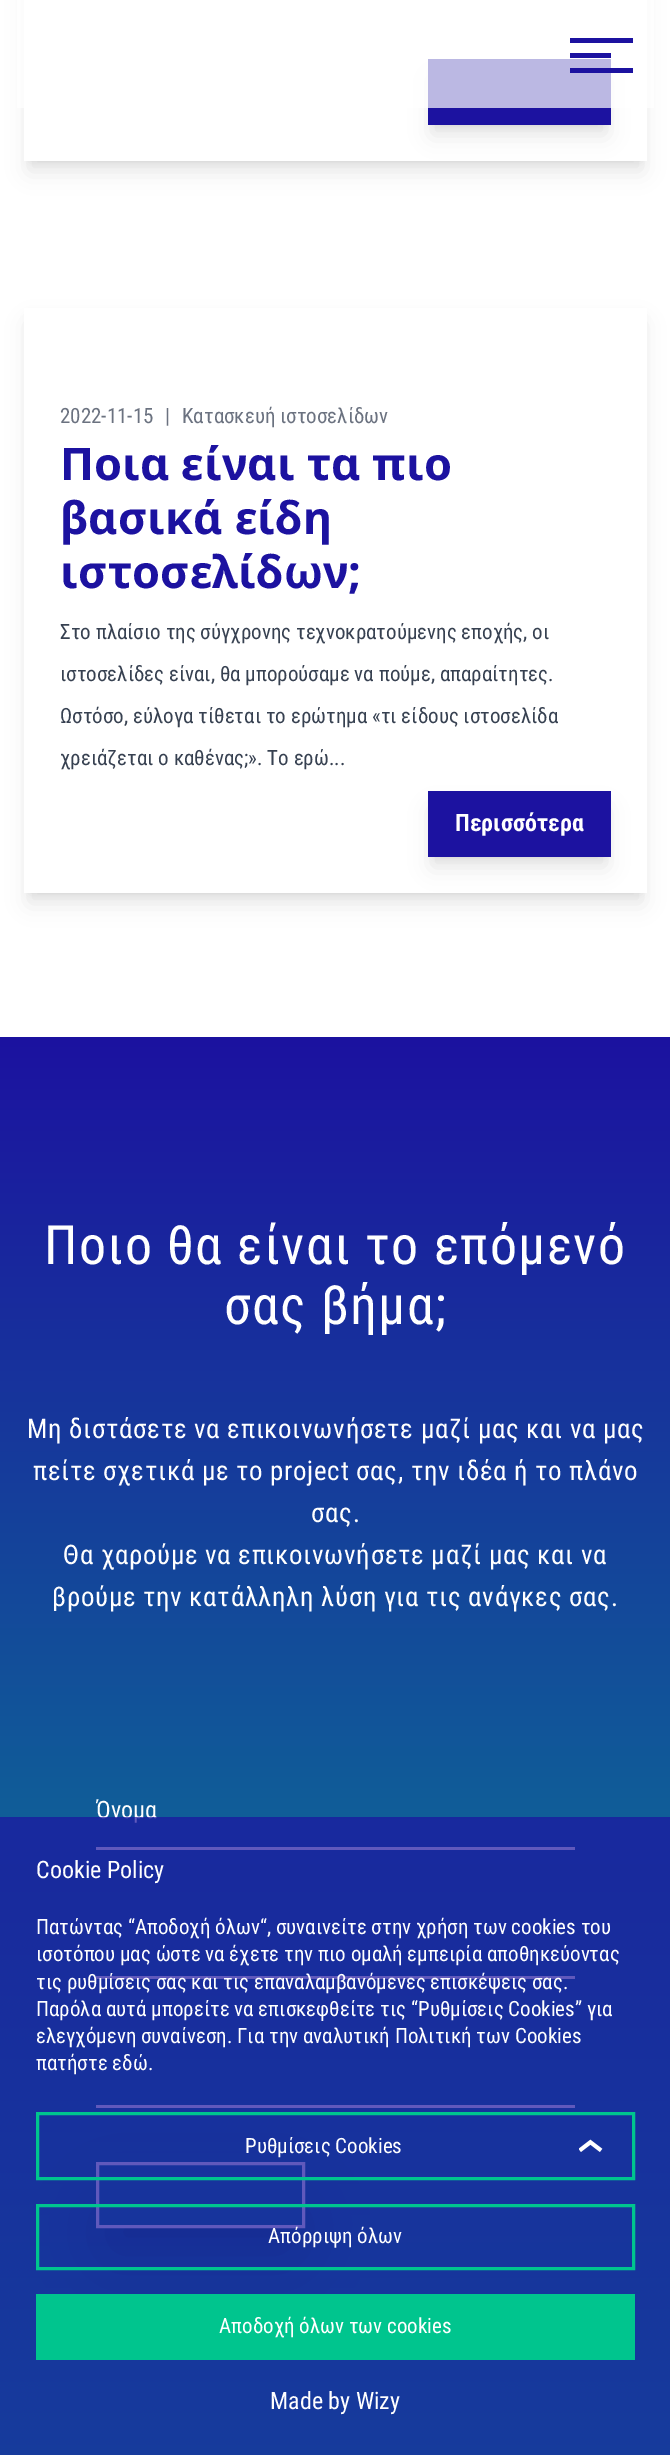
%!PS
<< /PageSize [670 2455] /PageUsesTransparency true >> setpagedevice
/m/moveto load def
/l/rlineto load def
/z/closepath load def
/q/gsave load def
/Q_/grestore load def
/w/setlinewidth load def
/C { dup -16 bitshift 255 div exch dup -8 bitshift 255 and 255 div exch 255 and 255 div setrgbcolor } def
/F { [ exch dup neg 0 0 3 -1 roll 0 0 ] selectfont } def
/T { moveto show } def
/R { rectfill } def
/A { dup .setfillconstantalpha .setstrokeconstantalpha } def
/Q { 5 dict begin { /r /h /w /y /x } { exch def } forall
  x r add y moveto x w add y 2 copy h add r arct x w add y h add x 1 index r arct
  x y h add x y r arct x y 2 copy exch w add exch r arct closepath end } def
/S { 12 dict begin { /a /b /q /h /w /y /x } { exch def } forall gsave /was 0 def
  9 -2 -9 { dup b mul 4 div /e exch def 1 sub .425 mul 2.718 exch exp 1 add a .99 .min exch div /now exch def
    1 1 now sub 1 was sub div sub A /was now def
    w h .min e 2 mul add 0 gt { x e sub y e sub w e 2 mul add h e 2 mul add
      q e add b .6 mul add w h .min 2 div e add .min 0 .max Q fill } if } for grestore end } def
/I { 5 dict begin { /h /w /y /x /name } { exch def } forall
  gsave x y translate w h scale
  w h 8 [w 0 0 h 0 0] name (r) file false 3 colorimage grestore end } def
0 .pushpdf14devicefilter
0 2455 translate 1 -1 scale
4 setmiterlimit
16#FFFFFF C
0 0 670 2455 R
16#000000 C
30 -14 611 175 0 4.5 .1 S
29 -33 613 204 0 11 .1 S
16#FFFFFF C
24 0 623 161 R
16#000000 C
434 71 171 54 0 4.5 .1 S
432 78 174 57 0 11 .1 S
16#1C12A0 C
428 59 183 66 R
0.7 A
16#FFFFFF C
17 0 637 108 R
1 A
16#1C12A0 C
570 38 63 5 R
570 53 41 5 R
570 68 63 5 R
16#000000 C
30 317 611 576 0 4.5 .1 S
29 324 613 579 0 11 .1 S
16#FFFFFF C
24 308 623 585 R
/RobotoCondensed-Regular 21 F
16#6B7280 C
(2022-11-15) 60 423 T
(|) 165 423 T
(Κατασκευή ιστοσελίδων) 182 423 T
/NotoSans-Bold 45 F
16#1C12A0 C
(Ποια είναι τα πιο) 60 480 T
(βασικά είδη) 60 534 T
(ιστοσελίδων;) 60 588 T
/RobotoCondensed-Regular 21 F
16#374151 C
(Στο πλαίσιο της σύγχρονης τεχνοκρατούμενης εποχής, οι) 60 639 T
(ιστοσελίδες είναι, θα μπορούσαμε να πούμε, απαραίτητες.) 60 681 T
(Ωστόσο, εύλογα τίθεται το ερώτημα «τι είδους ιστοσελίδα) 60 723 T
(χρειάζεται ο καθένας;». Το ερώ...) 60 765 T
16#000000 C
434 803 171 54 0 4.5 .1 S
432 810 174 57 0 11 .1 S
16#1C12A0 C
428 791 183 66 R
/RobotoCondensed-Bold 24 F
16#FFFFFF C
(Περισσότερα) 455 831 T
q 0 1037 m 670 0 l 0 1418 l -670 0 l z clip newpath
<< /ShadingType 2 /ColorSpace /DeviceRGB /Coords [335 1037 335 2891] /Extend [true true] /Function << /FunctionType 2 /Domain [0 1] /C0 [.11 .071 .627] /C1 [0 .773 .557] /N 1 >> >> shfill Q_
/RobotoCondensed-Regular 54 F
44 1264 m 1.35 0 (Ποιο θα είναι το επόμενό) ashow
224 1324 m 1.35 0 (σας βήμα;) ashow
/RobotoCondensed-Regular 27 F
27 1438 m .68 0 (Μη διστάσετε να επικοινωνήσετε μαζί μας και να μας) ashow
33 1480 m .68 0 (πείτε σχετικά με το project σας, την ιδέα ή το πλάνο) ashow
311 1522 m .68 0 (σας.) ashow
63 1564 m .68 0 (Θα χαρούμε να επικοινωνήσετε μαζί μας και να) ashow
52 1606 m .68 0 (βρούμε την κατάλληλη λύση για τις ανάγκες σας.) ashow
96 1847 479 3 R
/RobotoCondensed-Regular 24 F
(Όνομα) 96 1818 T
96 1976 479 3 R
q
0 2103 m 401 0 l 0 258 l -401 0 l z 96 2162 m 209 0 l 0 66 l -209 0 l z eoclip newpath
16#000000 C
114 2217 173 30 0 37.5 .25 S
Q_
3 w
97.5 2163.5 206 63 rectstroke
96 2105 479 3 R
0.7 A
16#1C12A0 C
0 1817 670 638 R
1 A
16#FFFFFF C
(Cookie Policy) 36 1878 T
/RobotoCondensed-Regular 21 F
(Πατώντας “Αποδοχή όλων“, συναινείτε στην χρήση των cookies του) 36 1934 T
(ισοτόπου μας ώστε να έχετε την πιο ομαλή εμπειρία αποθηκεύοντας) 36 1961 T
(τις ρυθμίσεις σας και τις επαναλαμβανόμενες επισκέψεις σας.) 36 1989 T
(Παρόλα αυτά μπορείτε να επισκεφθείτε τις “Ρυθμίσεις Cookies” για) 36 2016 T
(ελεγχόμενη συναίνεση. Για την αναλυτική Πολιτική των Cookies) 36 2043 T
(πατήστε εδώ.) 36 2070 T
16#00C58E C
37.5 2113.5 596 65 rectstroke
16#FFFFFF C
(Ρυθμίσεις Cookies) 245 2153 T
(1.rgb) 579 2139 24 13 I
16#00C58E C
37.5 2205.5 596 63 rectstroke
16#FFFFFF C
(Απόρριψη όλων) 268 2243 T
16#00C58E C
36 2294 599 66 R
16#FFFFFF C
(Αποδοχή όλων των cookies) 219 2333 T
/RobotoCondensed-Regular 24 F
(Made by Wizy) 270 2409 T
.poppdf14devicefilter showpage
